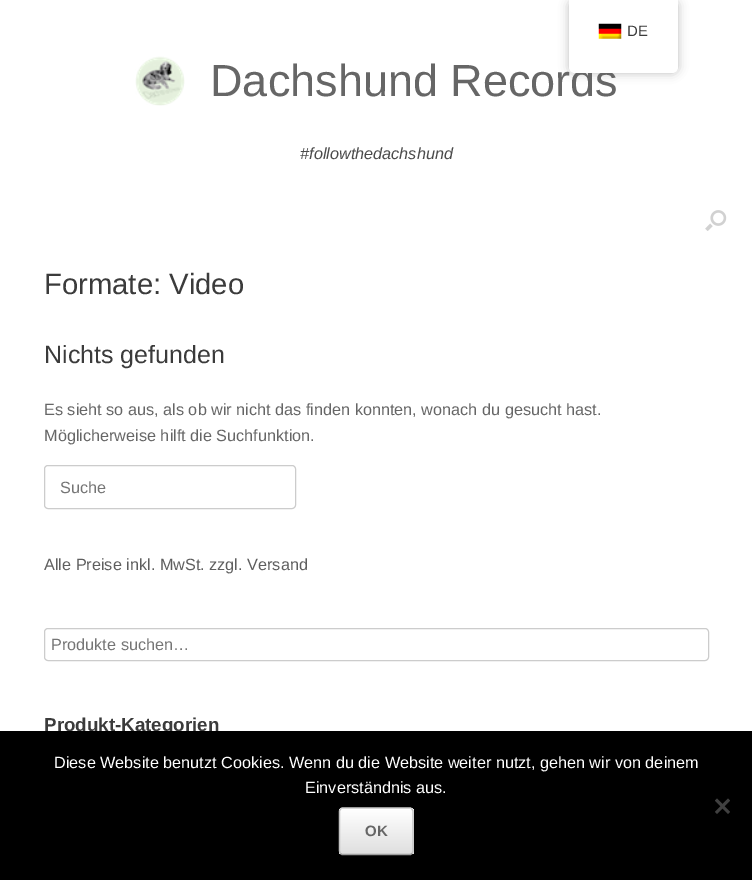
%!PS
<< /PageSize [752 880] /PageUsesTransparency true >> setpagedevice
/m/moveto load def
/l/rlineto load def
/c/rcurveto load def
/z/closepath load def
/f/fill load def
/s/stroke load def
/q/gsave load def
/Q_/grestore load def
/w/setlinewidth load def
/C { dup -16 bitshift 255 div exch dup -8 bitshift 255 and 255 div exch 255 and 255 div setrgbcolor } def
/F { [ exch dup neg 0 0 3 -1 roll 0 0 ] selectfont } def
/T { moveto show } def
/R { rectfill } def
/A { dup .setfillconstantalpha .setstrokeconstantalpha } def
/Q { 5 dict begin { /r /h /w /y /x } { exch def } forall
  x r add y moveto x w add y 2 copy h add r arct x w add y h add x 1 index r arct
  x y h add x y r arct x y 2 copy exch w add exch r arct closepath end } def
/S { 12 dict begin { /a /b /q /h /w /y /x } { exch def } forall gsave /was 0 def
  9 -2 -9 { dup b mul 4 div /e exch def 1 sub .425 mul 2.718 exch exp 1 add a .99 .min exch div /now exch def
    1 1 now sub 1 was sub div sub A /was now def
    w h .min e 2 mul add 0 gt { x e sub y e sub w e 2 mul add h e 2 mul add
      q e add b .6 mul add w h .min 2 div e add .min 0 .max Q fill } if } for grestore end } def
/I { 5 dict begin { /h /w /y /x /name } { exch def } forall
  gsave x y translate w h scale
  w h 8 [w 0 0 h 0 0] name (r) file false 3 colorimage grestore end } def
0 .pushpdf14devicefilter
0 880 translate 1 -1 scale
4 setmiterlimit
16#FFFFFF C
0 0 752 880 R
16#000000 C
569 0 109 73 6 5 .25 S
/LiberationSans-Regular 45 F
16#666666 C
(Dachshund Records) 210 96 T
16#FFFFFF C
569 0 m 109 0 l 0 67 l 0 3.5 -2.5 6 -6 6 c -97 0 l -3.5 0 -6 -2.5 -6 -6 c z f
(1.rgb) 598 23 24 16 I
/LiberationSans-Regular 15 F
16#3B3B3B C
(DE) 627 36 T
(2.rgb) 135 56 50 50 I
/LiberationSans-Italic 16.25 F
16#4B4B4B C
(#followthedachshund) 300 159 T
(3.rgb) 705 210 22 21 I
/LiberationSans-Regular 29.25 F
16#3B3B3B C
(Formate: Video) 44 294 T
/LiberationSans-Regular 25 F
(Nichts gefunden) 44 363 T
/LiberationSans-Regular 16.25 F
16#666666 C
(Es sieht so aus, als ob wir nicht das finden konnten, wonach du gesucht hast.) 44 415 T
(Möglicherweise hilft die Suchfunktion.) 44 441 T
16#CCCCCC C
44.5 465.5 251 43 3.5 Q s
16#757575 C
(Suche) 60 493 T
16#5E5E5E C
(Alle Preise inkl. MwSt. zzgl. Versand) 44 570 T
16#CCCCCC C
44.5 628.5 664 32 3.5 Q s
16#757575 C
(Produkte suchen…) 51 650 T
/LiberationSans-Bold 18.75 F
16#3B3B3B C
(Produkt-Kategorien) 44 731 T
16#000000 C
0 731 752 149 R
/LiberationSans-Regular 16.25 F
16#FFFFFF C
(Diese Website benutzt Cookies. Wenn du die Website weiter nutzt, gehen wir von deinem) 54 768 T
(Einverständnis aus.) 305 793 T
16#404040 C
728 798.5 m 2 2 l -13 13.5 l -2 -2 l z f
715 800.5 m 2 -2 l 13 13.5 l -2 2 l z f
q
339 808 75 47 4 Q clip newpath
q 339 808 m 75 0 l 0 1 l -75 0 l z clip newpath
<< /ShadingType 2 /ColorSpace /DeviceRGB /Coords [340 809 340 764] /Extend [true true] /Function << /FunctionType 2 /Domain [0 1] /C0 [.875 .875 .875] /C1 [1 1 1] /N 1 >> >> shfill Q_
q 339 809 m 75 0 l 0 45 l -75 0 l z clip newpath
<< /ShadingType 2 /ColorSpace /DeviceRGB /Coords [340 854 340 809] /Extend [true true] /Function << /FunctionType 2 /Domain [0 1] /C0 [.875 .875 .875] /C1 [1 1 1] /N 1 >> >> shfill Q_
Q_
16#D2D2D2 C
1.2 w
340.5 809 m 1.5 -1 l 68.5 0 l 1.5 1 l s
16#C3C3C3 C
412 809 m 1 2 l 0 40 l -1 2.5 l s
16#9F9F9F C
412 853.5 m -1.5 1 l -68.5 0 l -1.5 -1 l s
16#C3C3C3 C
340.5 853.5 m -1 -2.5 l 0 -40 l 1 -2 l s
/LiberationSans-Bold 15 F
16#666666 C
(OK) 365 836 T
.poppdf14devicefilter showpage
